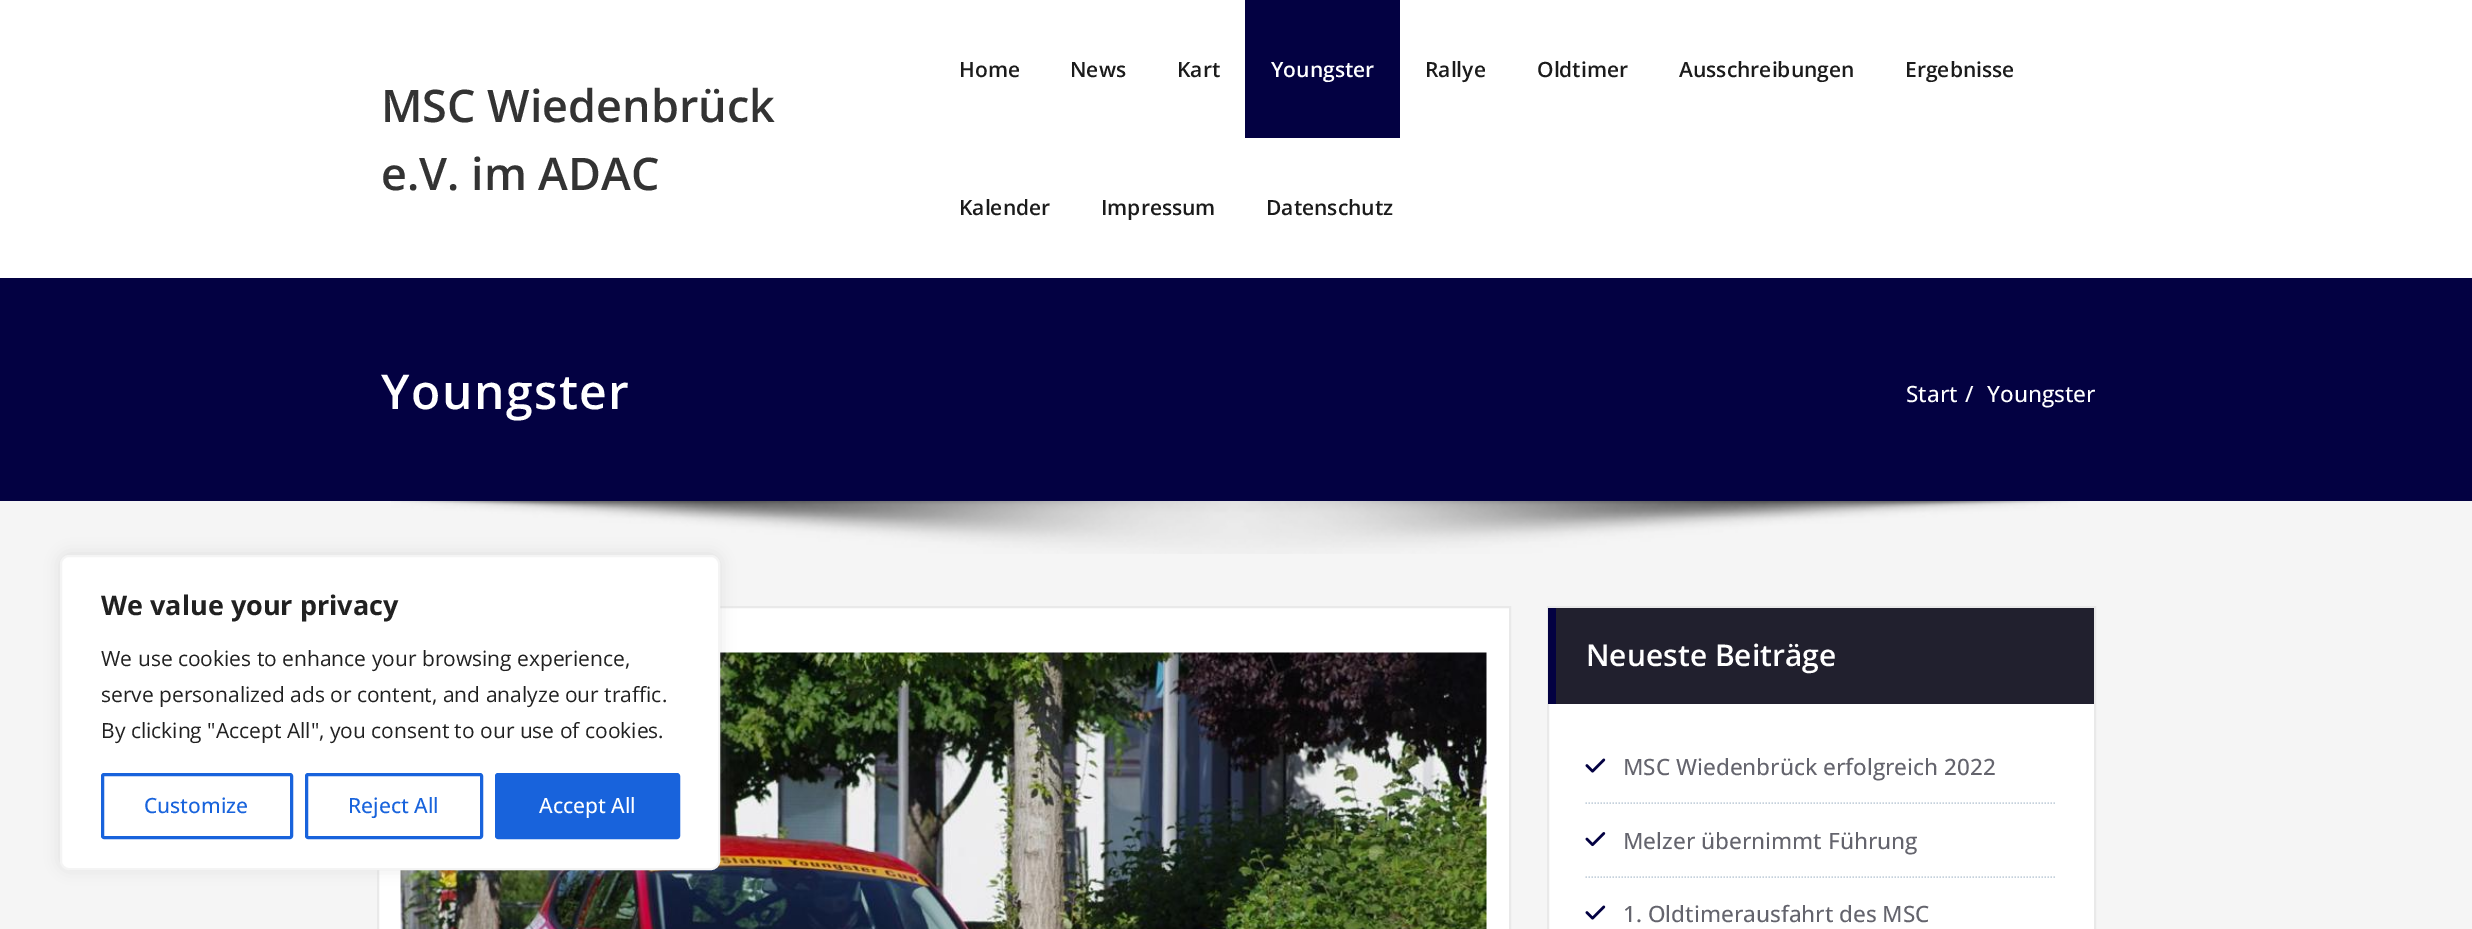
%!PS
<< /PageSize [2472 929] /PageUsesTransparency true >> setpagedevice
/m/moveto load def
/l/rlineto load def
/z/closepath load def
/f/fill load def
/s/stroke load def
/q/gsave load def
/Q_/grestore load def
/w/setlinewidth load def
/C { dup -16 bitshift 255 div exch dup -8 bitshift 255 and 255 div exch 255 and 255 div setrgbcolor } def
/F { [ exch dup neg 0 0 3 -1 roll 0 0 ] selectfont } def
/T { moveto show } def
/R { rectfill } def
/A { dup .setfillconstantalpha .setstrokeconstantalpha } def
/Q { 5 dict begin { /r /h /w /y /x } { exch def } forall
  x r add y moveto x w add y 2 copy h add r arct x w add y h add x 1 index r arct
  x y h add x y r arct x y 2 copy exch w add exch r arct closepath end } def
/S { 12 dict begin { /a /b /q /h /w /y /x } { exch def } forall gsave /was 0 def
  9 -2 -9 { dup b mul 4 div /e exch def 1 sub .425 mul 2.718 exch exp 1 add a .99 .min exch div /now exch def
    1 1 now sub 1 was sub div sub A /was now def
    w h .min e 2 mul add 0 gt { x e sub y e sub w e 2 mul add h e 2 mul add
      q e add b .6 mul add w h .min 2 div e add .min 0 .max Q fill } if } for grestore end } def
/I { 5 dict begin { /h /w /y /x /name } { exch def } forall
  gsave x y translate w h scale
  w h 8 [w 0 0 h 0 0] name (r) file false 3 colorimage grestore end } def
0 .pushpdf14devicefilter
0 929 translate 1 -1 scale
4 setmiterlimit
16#F5F5F5 C
0 0 2472 929 R
16#FFFFFF C
0 0 2472 278 R
/OpenSans-SemiBold 45 F
16#333333 C
(MSC Wiedenbrück) 381 122 T
(e.V. im ADAC) 381 190 T
/OpenSans-SemiBold 21 F
16#1B1B1B C
(Home) 959 77 T
(News) 1070 77 T
(Kart) 1177 77 T
16#030142 C
1245 0 155 138 R
16#FFFFFF C
(Youngster) 1271 77 T
16#1B1B1B C
(Rallye) 1425 77 T
(Oldtimer) 1537 77 T
(Ausschreibungen) 1679 77 T
(Ergebnisse) 1905 77 T
(Kalender) 959 215 T
(Impressum) 1101 215 T
(Datenschutz) 1266 215 T
16#030142 C
0 278 2472 223 R
/OpenSans-SemiBold 48 F
16#FFFFFF C
381 409 m 1.5 0 (Youngster) ashow
/OpenSans-Medium 22.5 F
(Start) 1906 402 T
(/) 1965 402 T
(Youngster) 1987 402 T
(1.rgb) 391 501 1689 53 I
378 607 m 1132 0 l 0 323 l -1132 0 l z q f Q_
16#E9E9E9 C
2 w
s
(2.rgb) 400 652 1087 277 I
16#FFFFFF C
1549 704 545 225 R
16#E9E9E9 C
1548 607 547 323 rectstroke
16#21202E C
1556 608 538 96 R
16#030142 C
1548 608 8 96 R
/OpenSans-SemiBold 30 F
16#FFFFFF C
(Neueste Beiträge) 1586 666 T
16#C5D1DC C
1.5 w
[1.5 1.5] 0 setdash
1585.5 803 m 471 0 l s
(3.rgb) 1585 758 21 15 I
/OpenSans-Medium 22.5 F
16#64646D C
(MSC Wiedenbrück erfolgreich 2022) 1623 775 T
16#C5D1DC C
1585.5 877 m 471 0 l s
(4.rgb) 1585 832 21 15 I
16#64646D C
(Melzer übernimmt Führung) 1623 849 T
(3.rgb) 1585 905 21 15 I
(1. Oldtimerausfahrt des MSC) 1623 922 T
16#ACABAB C
60 554 660 315 9 7.5 .3 S
16#FFFFFF C
61 556 658 313 8 Q q f Q_
16#F4F4F4 C
2 w
[] 0 setdash
s
/OpenSans-Bold 27 F
16#212121 C
(We value your privacy) 101 615 T
/OpenSans-Regular 21 F
(We use cookies to enhance your browsing experience,) 101 666 T
(serve personalized ads or content, and analyze our traffic.) 101 702 T
(By clicking "Accept All", you consent to our use of cookies.) 101 738 T
16#1863DC C
3 w
102.5 774.5 189 63 1.5 Q s
/OpenSans-Medium 21 F
(Customize) 144 813 T
306.5 774.5 175 63 1.5 Q s
(Reject All) 348 813 T
496.5 774.5 182 63 1.5 Q q f Q_
s
16#FFFFFF C
(Accept All) 539 813 T
.poppdf14devicefilter showpage
